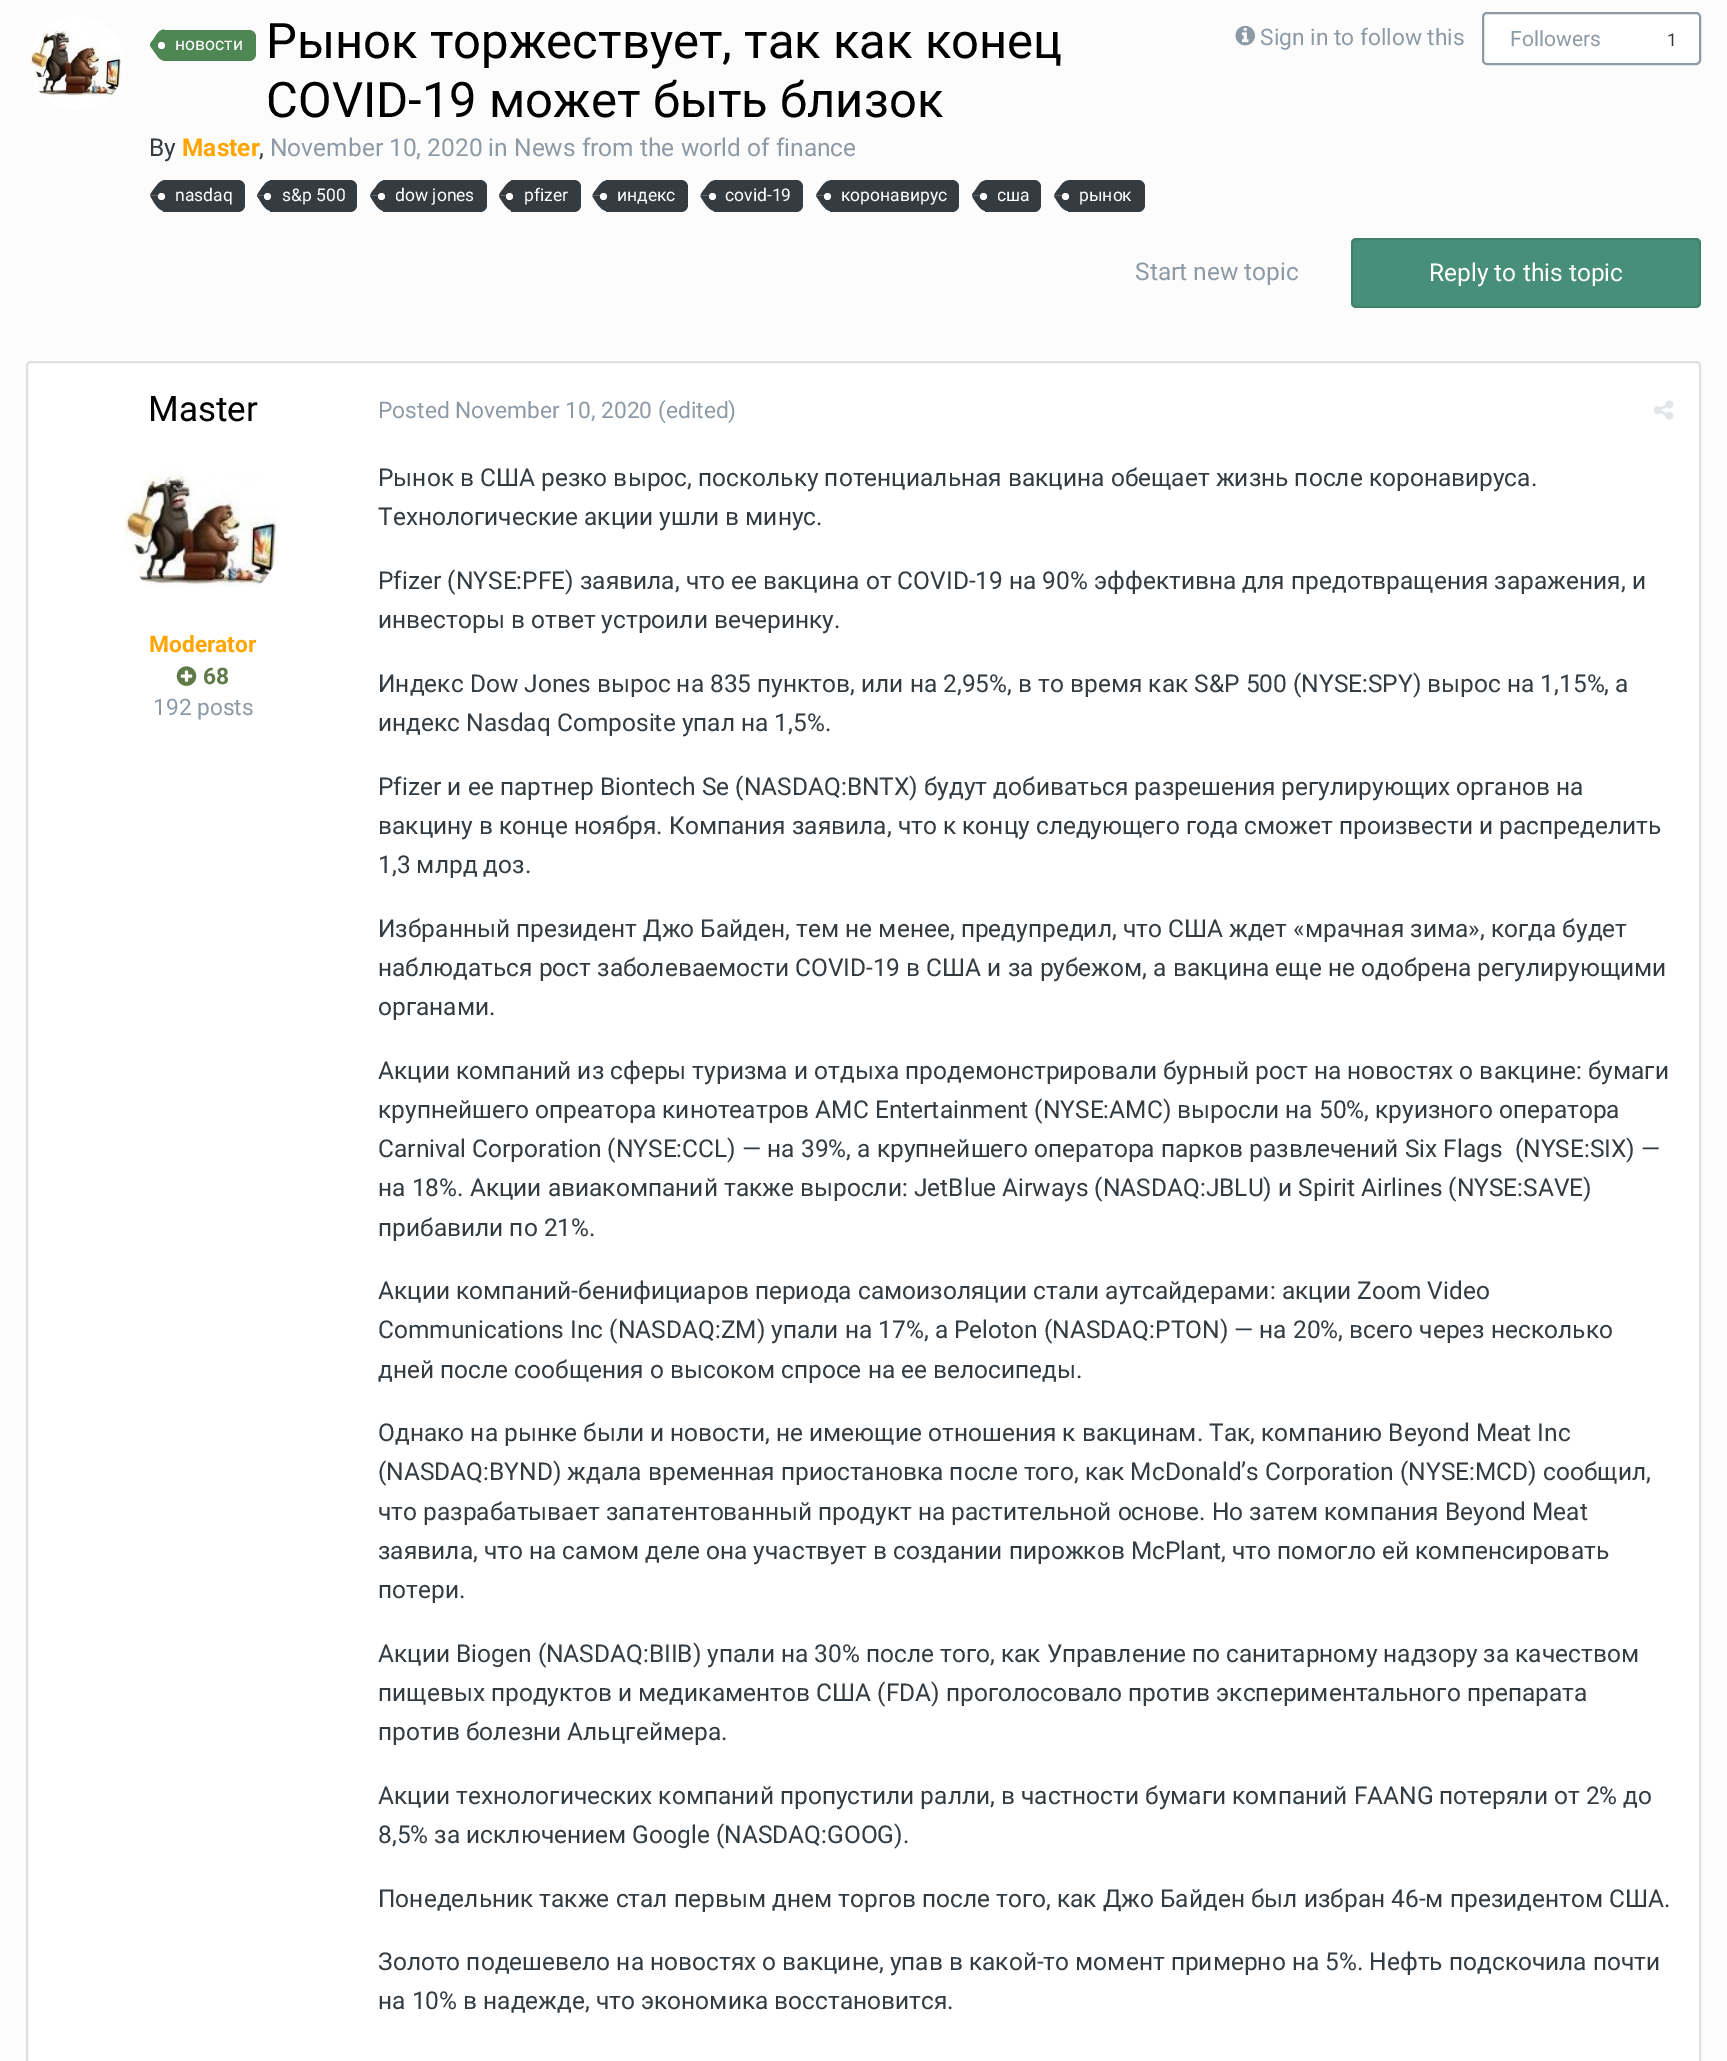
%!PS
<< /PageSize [1727 2061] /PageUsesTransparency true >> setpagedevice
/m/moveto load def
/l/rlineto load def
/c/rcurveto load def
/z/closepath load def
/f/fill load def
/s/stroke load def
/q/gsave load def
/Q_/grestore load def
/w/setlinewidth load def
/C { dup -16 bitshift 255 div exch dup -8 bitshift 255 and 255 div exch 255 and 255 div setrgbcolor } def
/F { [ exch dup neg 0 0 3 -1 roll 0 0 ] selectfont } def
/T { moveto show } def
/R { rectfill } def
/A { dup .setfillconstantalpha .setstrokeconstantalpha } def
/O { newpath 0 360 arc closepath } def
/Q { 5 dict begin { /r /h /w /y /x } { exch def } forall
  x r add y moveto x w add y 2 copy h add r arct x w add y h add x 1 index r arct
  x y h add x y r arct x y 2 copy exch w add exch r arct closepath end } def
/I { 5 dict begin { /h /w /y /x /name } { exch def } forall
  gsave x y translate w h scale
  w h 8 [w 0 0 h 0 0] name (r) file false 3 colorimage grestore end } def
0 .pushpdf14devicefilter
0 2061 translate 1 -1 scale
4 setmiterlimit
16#FCFCFC C
0 0 1727 2061 R
16#FFFFFF C
77 63 47 O f
(1.rgb) 30 27 92 70 I
16#4E8754 C
163 30 m 86 0 l 4 0 7 3 7 7 c 0 17 l 0 4 -3 7 -7 7 c -86 0 l z f
150.5 46.5 m -.5 -1.5 l 14.5 0 l -.5 .5 l .5 -.5 l 0 15.5 l -2 0 -4.5 -1 -6.5 -3.5 c z 154 38.5 m 2.5 -4 5 -9 10.5 -9 c 0 15 l -.5 -.5 l .5 1 l -14.5 0 l 0 -2 3 -5 4 -6.5 c z f
/Roboto-Regular 17.5 F
16#FFFFFF C
(новости) 175 50 T
161.5 45.5 3.5 O f
/Roboto-Regular 49 F
16#000000 C
(Рынок торжествует, так как конец) 266 58 T
(COVID-19 может быть близок) 266 117 T
/Roboto-Regular 24.5 F
16#353C41 C
(By) 149 156 T
/Roboto-Bold 24.5 F
16#FFA500 C
(Master) 182 156 T
/Roboto-Regular 24.5 F
16#353C41 C
(,) 259 156 T
16#8D9AA6 C
(November 10, 2020 in News from the world of finance) 270 156 T
16#353C41 C
163 180 m 75 0 l 4 0 7 3 7 7 c 0 18 l 0 4 -3 7 -7 7 c -75 0 l z f
150.5 196.5 m -.5 -1 l 14.5 0 l -.5 .5 l .5 0 l 0 15 l -6.5 0 -11 -9.5 -14 -14.5 c z f
155 187.5 m 2.5 -3 5 -7 9.5 -7 c 0 15 l -.5 -.5 l .5 .5 l -14.5 0 l .5 -2 3.5 -6 5 -8 c z f
/Roboto-Regular 17.5 F
16#FFFFFF C
(nasdaq) 175 201 T
161.5 196.5 3.5 O f
16#353C41 C
270 180 m 80 0 l 4 0 7 3 7 7 c 0 18 l 0 4 -3 7 -7 7 c -80 0 l z f
258 197.5 m -.5 -.5 -1 -1 -1 -2 c 14.5 0 l -.5 .5 l .5 0 l 0 15 l -6.5 0 -10.5 -9 -13.5 -13.5 c z f
261.5 188 m 3 -3.5 5 -7.5 10 -7.5 c 0 15 l -.5 -.5 l .5 .5 l -14.5 0 l .5 -2 3.5 -5.5 4.5 -7.5 c z f
16#FFFFFF C
(s&p 500) 282 201 T
267.5 196.5 3.5 O f
16#353C41 C
383 180 m 97 0 l 4 0 7 3 7 7 c 0 18 l 0 4 -3 7 -7 7 c -97 0 l z f
370.5 197 m 0 -.5 -.5 -1 -.5 -1.5 c 14.5 0 l -.5 .5 l .5 0 l 0 15 l -6.5 0 -11 -9.5 -14 -14 c z f
375 188 m 2.5 -3.5 4.5 -7.5 9.5 -7.5 c 0 15 l -.5 -.5 l .5 .5 l -14.5 0 l .5 -2 3.5 -6 5 -7.5 c z f
q
396 180 78 32 rectclip
16#FFFFFF C
(dow jones) 395 201 T
Q_
16#FFFFFF C
381.5 196.5 3.5 O f
16#353C41 C
511 180 m 63 0 l 4 0 7 3 7 7 c 0 18 l 0 4 -3 7 -7 7 c -63 0 l z f
499 196.5 m 0 -1 l 14.5 0 l -.5 .5 l .5 0 l 0 15 l -6.5 0 -11.5 -10 -14.5 -14.5 c z f
503 189 m 2.5 -3.5 5.5 -8.5 10.5 -8.5 c 0 15 l -.5 -.5 l .5 .5 l -14.5 0 l .5 -2.5 2.5 -4.5 4 -6.5 c z f
16#FFFFFF C
(pfizer) 524 201 T
509.5 196.5 3.5 O f
16#353C41 C
606 180 m 75 0 l 4 0 7 3 7 7 c 0 18 l 0 4 -3 7 -7 7 c -75 0 l z f
592.5 196.5 m 0 -1 l 14.5 0 l -.5 .5 l .5 0 l 0 15 l -6.5 0 -11.5 -10 -14.5 -14.5 c z f
596.5 189 m 2.5 -3.5 5.5 -8.5 10.5 -8.5 c 0 15 l -.5 -.5 l .5 .5 l -14.5 0 l .5 -2.5 2.5 -4.5 4 -6.5 c z f
16#FFFFFF C
(индекс) 617 201 T
603.5 196.5 3.5 O f
16#353C41 C
714 180 m 82 0 l 4 0 7 3 7 7 c 0 18 l 0 4 -3 7 -7 7 c -82 0 l z f
700.5 196.5 m 0 -1 l 14.5 0 l -.5 .5 l .5 0 l 0 15 l -6.5 0 -11.5 -10 -14.5 -14.5 c z f
705 188.5 m 2.5 -3.5 5 -8 10 -8 c 0 15 l -.5 -.5 l .5 .5 l -14.5 0 l .5 -2 3 -5.5 4.5 -7 c z f
16#FFFFFF C
(covid-19) 725 201 T
712.5 196.5 3.5 O f
16#353C41 C
830 180 m 122 0 l 4 0 7 3 7 7 c 0 18 l 0 4 -3 7 -7 7 c -122 0 l z f
816 196 m 0 -.5 l 14.5 0 l -.5 .5 l .5 0 l 0 15 l -6 0 -11.5 -11 -14.5 -15 c z 830.5 195.5 m 0 0 l z eofill
821.5 186.5 m 2.5 -3 5 -6 9 -6 c 0 15 l -.5 -.5 l .5 .5 l -14.5 0 l .5 -2 4.5 -7 5.5 -9 c z 830.5 195.5 m 0 0 l z eofill
16#FFFFFF C
(коронавирус) 841 201 T
827.5 196.5 3.5 O f
16#353C41 C
985 180 m 49 0 l 4 0 7 3 7 7 c 0 18 l 0 4 -3 7 -7 7 c -49 0 l z f
973 198 m -1 -2.5 l 14 0 l 0 .5 l 0 15 l -5.5 0 -10 -8.5 -13 -13 c z 986 195.5 m 0 0 l z eofill
975 190.5 m 3 -4 5 -10 11 -10 c 0 15 l 0 -.5 l 0 .5 l -14 0 l 0 -2 2 -3.5 3 -5 c z 986 195.5 m 0 0 l z eofill
q
998 180 31 32 rectclip
16#FFFFFF C
(сша) 997 201 T
Q_
16#FFFFFF C
983.5 196.5 3.5 O f
16#353C41 C
1068 180 m 70 0 l 4 0 7 3 7 7 c 0 18 l 0 4 -3 7 -7 7 c -70 0 l z f
1054.5 197 m -.5 -1.5 l 14.5 0 l -.5 .5 l .5 0 l 0 15 l -6.5 0 -11 -9.5 -14 -14 c z f
1059 188 m 2.5 -3.5 5 -7.5 9.5 -7.5 c 0 15 l -.5 -.5 l .5 .5 l -14.5 0 l .5 -2 3.5 -6 5 -7.5 c z f
16#FFFFFF C
(рынок) 1079 201 T
1065.5 196.5 3.5 O f
(2.rgb) 1235 25 20 21 I
/Roboto-Regular 22.75 F
16#8D9AA6 C
(Sign in to follow this) 1260 45 T
16#FFFFFF C
1483 13 217 51 4 Q q f Q_
16#8D9AA6 C
2 w
s
/Roboto-Regular 21 F
(Followers) 1510 46 T
/Roboto-Regular 17.5 F
16#333333 C
(1) 1667 46 T
/Roboto-Regular 24.5 F
16#8D9AA6 C
(Start new topic) 1135 280 T
16#478F79 C
1351 238 350 70 5 Q f
0.1 A
16#000000 C
1352 239 348 68 4 Q s
1 A
16#FFFFFF C
(Reply to this topic) 1429 281 T
27 362 1673 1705 4 Q q f Q_
16#E0E0E0 C
s
/Roboto-Regular 35 F
16#000000 C
(Master) 148 421 T
(3.rgb) 124 471 155 116 I
/Roboto-Bold 22.75 F
16#FFA500 C
(Moderator) 149 652 T
(4.rgb) 176 666 21 20 I
16#5F7A47 C
(68) 203 684 T
/Roboto-Regular 22.75 F
16#8D9AA6 C
(192 posts) 153 715 T
(Posted November 10, 2020 \(edited\)) 378 418 T
(5.rgb) 1653 400 21 20 I
/Roboto-Regular 24.5 F
16#353C41 C
(Рынок в США резко вырос, поскольку потенциальная вакцина обещает жизнь после коронавируса.) 378 486 T
(Технологические акции ушли в минус.) 378 525 T
(Pfizer \(NYSE:PFE\) заявила, что ее вакцина от COVID-19 на 90% эффективна для предотвращения заражения, и) 378 589 T
(инвесторы в ответ устроили вечеринку.) 378 628 T
(Индекс Dow Jones вырос на 835 пунктов, или на 2,95%, в то время как S&P 500 \(NYSE:SPY\) вырос на 1,15%, а) 378 692 T
(индекс Nasdaq Composite упал на 1,5%.) 378 731 T
(Pfizer и ее партнер Biontech Se \(NASDAQ:BNTX\) будут добиваться разрешения регулирующих органов на) 378 795 T
(вакцину в конце ноября. Компания заявила, что к концу следующего года сможет произвести и распределить) 378 834 T
(1,3 млрд доз.) 378 873 T
(Избранный президент Джо Байден, тем не менее, предупредил, что США ждет «мрачная зима», когда будет) 378 937 T
(наблюдаться рост заболеваемости COVID-19 в США и за рубежом, а вакцина еще не одобрена регулирующими) 378 976 T
(органами.) 378 1015 T
(Акции компаний из сферы туризма и отдыха продемонстрировали бурный рост на новостях о вакцине: бумаги) 378 1079 T
(крупнейшего опреатора кинотеатров AMC Entertainment \(NYSE:AMC\) выросли на 50%, круизного оператора) 378 1118 T
(Carnival Corporation \(NYSE:CCL\) — на 39%, а крупнейшего оператора парков развлечений Six Flags  \(NYSE:SIX\) —) 378 1157 T
(на 18%. Акции авиакомпаний также выросли: JetBlue Airways \(NASDAQ:JBLU\) и Spirit Airlines \(NYSE:SAVE\)) 378 1196 T
(прибавили по 21%.) 378 1236 T
(Акции компаний-бенифициаров периода самоизоляции стали аутсайдерами: акции Zoom Video) 378 1299 T
(Communications Inc \(NASDAQ:ZM\) упали на 17%, а Peloton \(NASDAQ:PTON\) — на 20%, всего через несколько) 378 1338 T
(дней после сообщения о высоком спросе на ее велосипеды.) 378 1378 T
(Однако на рынке были и новости, не имеющие отношения к вакцинам. Так, компанию Beyond Meat Inc) 378 1441 T
(\(NASDAQ:BYND\) ждала временная приостановка после того, как McDonald’s Corporation \(NYSE:MCD\) сообщил,) 378 1480 T
(что разрабатывает запатентованный продукт на растительной основе. Но затем компания Beyond Meat) 378 1520 T
(заявила, что на самом деле она участвует в создании пирожков McPlant, что помогло ей компенсировать) 378 1559 T
(потери.) 378 1598 T
(Акции Biogen \(NASDAQ:BIIB\) упали на 30% после того, как Управление по санитарному надзору за качеством) 378 1662 T
(пищевых продуктов и медикаментов США \(FDA\) проголосовало против экспериментального препарата) 378 1701 T
(против болезни Альцгеймера.) 378 1740 T
(Акции технологических компаний пропустили ралли, в частности бумаги компаний FAANG потеряли от 2% до) 378 1804 T
(8,5% за исключением Google \(NASDAQ:GOOG\).) 378 1843 T
(Понедельник также стал первым днем торгов после того, как Джо Байден был избран 46-м президентом США.) 378 1907 T
(Золото подешевело на новостях о вакцине, упав в какой-то момент примерно на 5%. Нефть подскочила почти) 378 1970 T
(на 10% в надежде, что экономика восстановится.) 378 2009 T
.poppdf14devicefilter showpage
